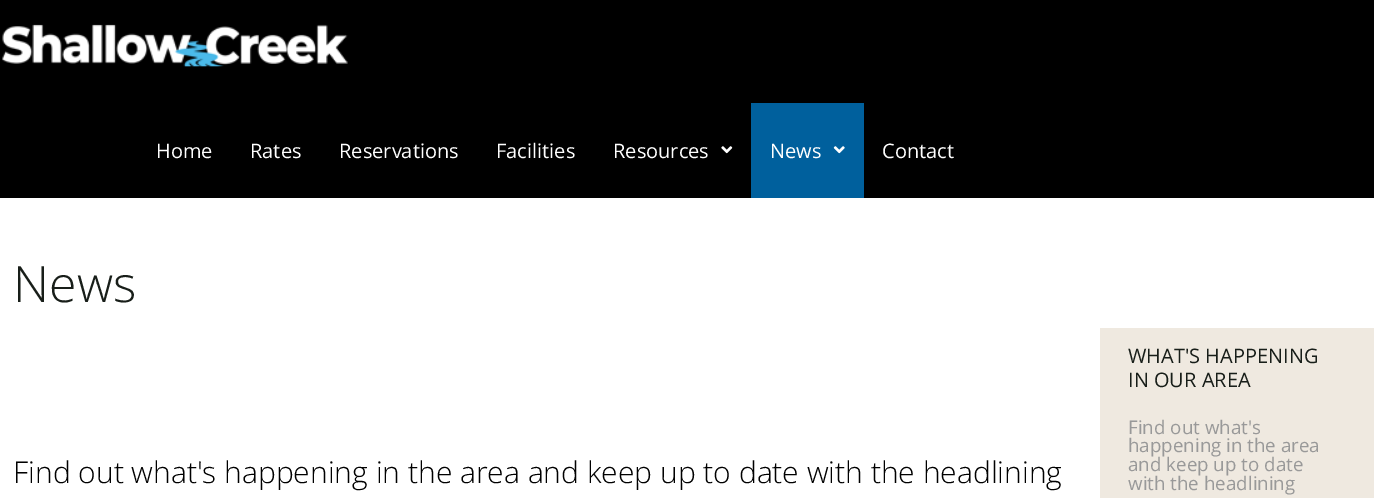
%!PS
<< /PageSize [1374 498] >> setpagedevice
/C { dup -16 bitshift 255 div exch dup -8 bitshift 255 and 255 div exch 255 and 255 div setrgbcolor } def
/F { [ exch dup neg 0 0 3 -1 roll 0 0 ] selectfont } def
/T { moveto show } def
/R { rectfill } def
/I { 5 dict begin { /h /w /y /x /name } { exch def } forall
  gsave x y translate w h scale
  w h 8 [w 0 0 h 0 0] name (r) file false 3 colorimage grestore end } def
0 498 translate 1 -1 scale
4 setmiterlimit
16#FFFFFF C
0 0 1374 498 R
16#000000 C
0 0 1374 198 R
(1.rgb) 2 24 346 43 I
/OpenSans-Regular 20 F
16#FFFFFF C
(Home) 156 158 T
(Rates) 250 158 T
(Reservations) 339 158 T
(Facilities) 496 158 T
(Resources) 613 158 T
(2.rgb) 721 146 12 8 I
16#00609D C
751 103 113 95 R
16#FFFFFF C
(News) 770 158 T
(3.rgb) 833 146 12 8 I
(Contact) 882 158 T
/OpenSans-Light 50 F
16#181E19 C
(News) 13 302 T
/OpenSans-Light 30 F
16#000000 C
(Find out what's happening in the area and keep up to date with the headlining) 13 483 T
16#EFE9E0 C
1100 328 274 170 R
/OpenSans-Regular 20 F
16#181E19 C
(WHAT'S HAPPENING) 1128 363 T
(IN OUR AREA) 1128 387 T
/OpenSans-Regular 18.75 F
16#999999 C
(Find out what's) 1128 434 T
(happening in the area) 1128 452 T
(and keep up to date) 1128 471 T
(with the headlining) 1128 490 T
showpage
